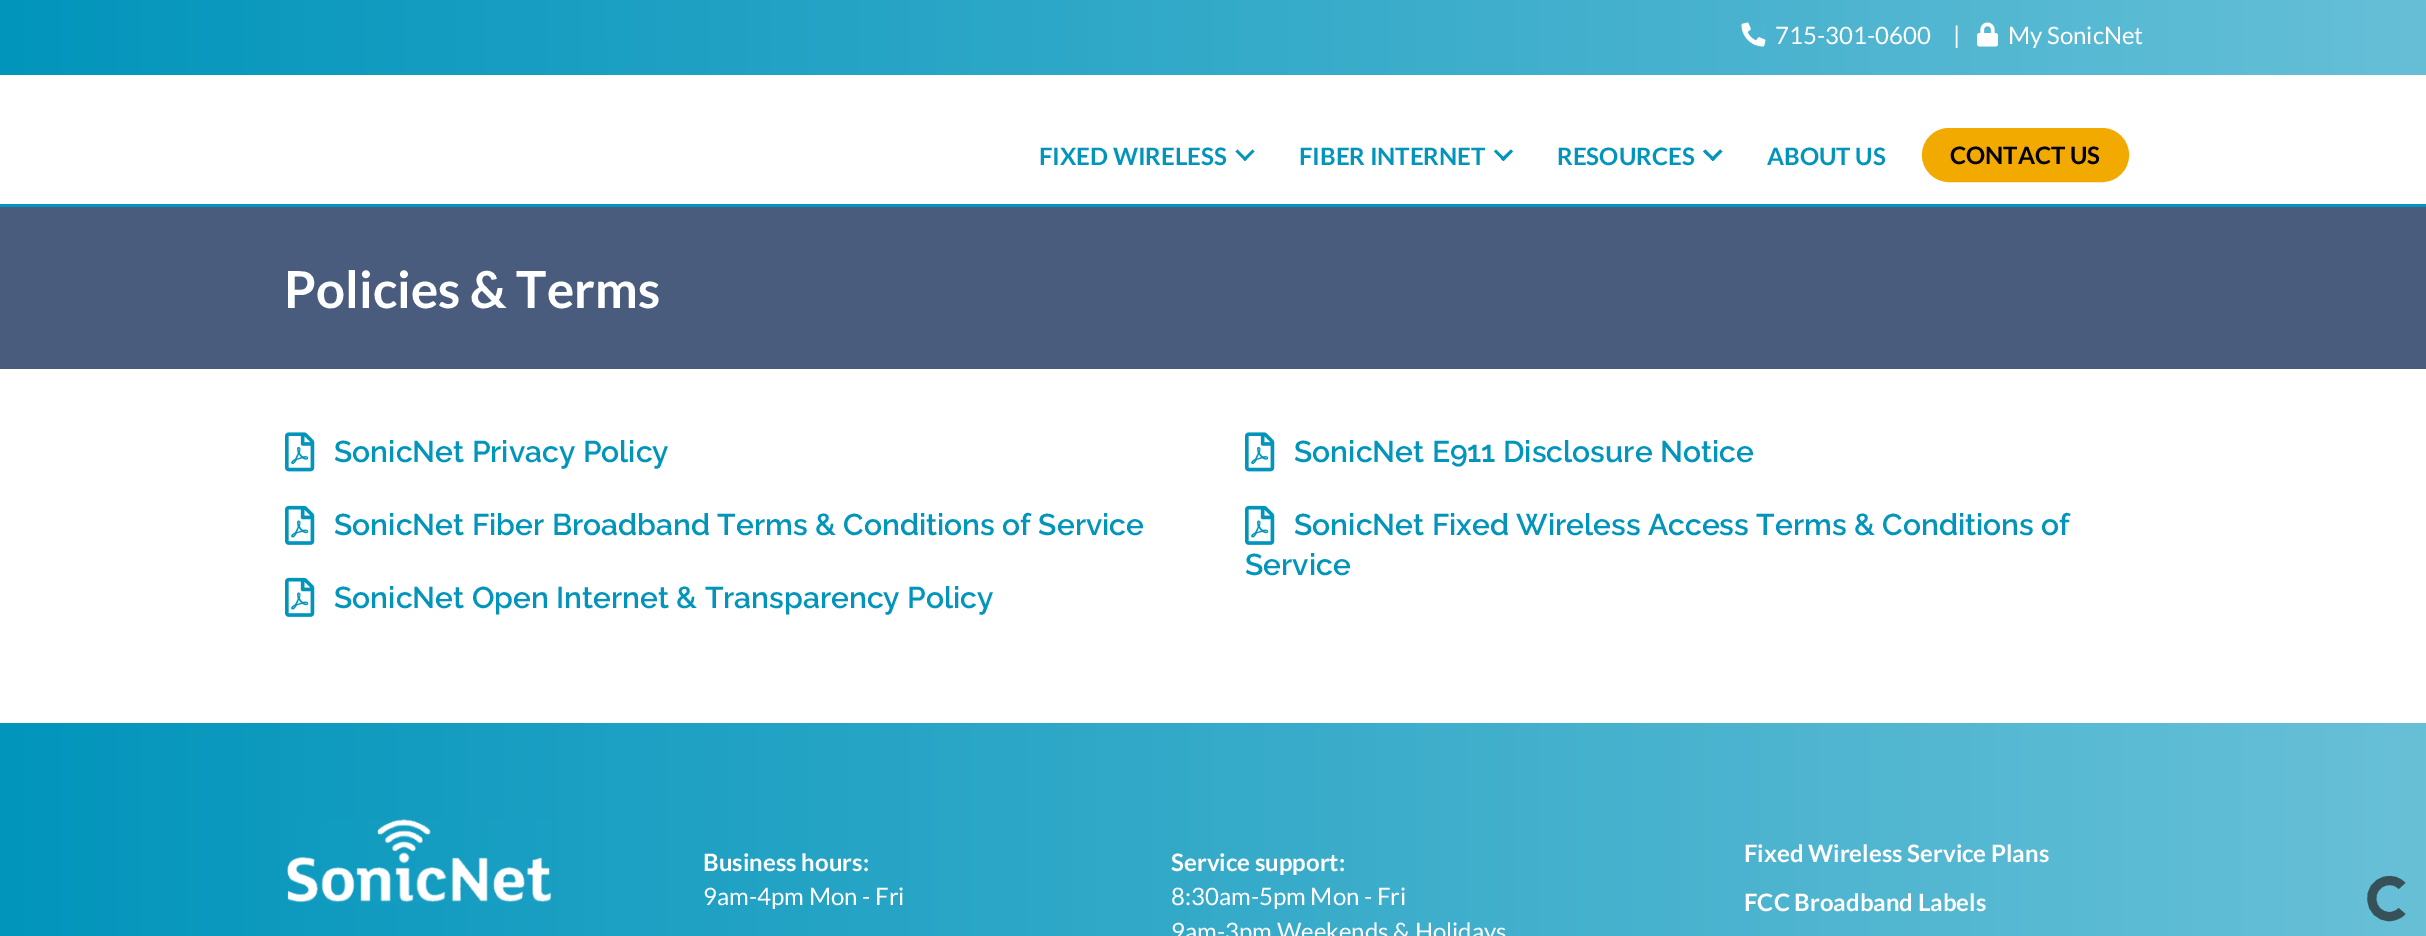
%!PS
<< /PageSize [2426 936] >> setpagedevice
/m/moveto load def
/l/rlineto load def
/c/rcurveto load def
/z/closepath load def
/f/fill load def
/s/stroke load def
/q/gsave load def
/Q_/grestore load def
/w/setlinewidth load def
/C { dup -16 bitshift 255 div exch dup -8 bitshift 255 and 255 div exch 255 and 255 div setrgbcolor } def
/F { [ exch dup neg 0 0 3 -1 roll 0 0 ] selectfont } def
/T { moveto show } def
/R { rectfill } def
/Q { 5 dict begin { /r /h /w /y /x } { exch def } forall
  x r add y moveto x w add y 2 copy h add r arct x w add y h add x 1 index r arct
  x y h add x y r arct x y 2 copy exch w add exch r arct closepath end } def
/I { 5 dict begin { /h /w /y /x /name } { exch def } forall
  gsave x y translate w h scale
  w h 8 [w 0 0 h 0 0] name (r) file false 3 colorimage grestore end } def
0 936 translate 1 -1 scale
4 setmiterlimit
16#FFFFFF C
0 0 2426 936 R
q 0 0 m 2426 0 l 0 75 l -2426 0 l z clip newpath
<< /ShadingType 2 /ColorSpace /DeviceRGB /Coords [0 38 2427 37] /Extend [true true] /Function << /FunctionType 2 /Domain [0 1] /C0 [.008 .584 .737] /C1 [.4 .749 .843] /N 1 >> >> shfill Q_
(1.rgb) 1741 22 25 25 I
/Lato-Regular 24 F
(715-301-0600) 1775 44 T
(|) 1953 44 T
(2.rgb) 1977 22 21 25 I
(My SonicNet) 2008 44 T
16#0295BC C
0 204 2426 3 R
/Lato-Bold 24 F
(FIXED WIRELESS) 1039 165 T
1252.5 149.5 m 2 2 l -9.5 9.5 l -2 -2 l z f
1237.5 149.5 m 9.5 9.5 l -2 2 l -9.5 -9.5 l z f
(FIBER INTERNET) 1299 165 T
1511 149.5 m 2 2 l -9.5 9.5 l -2.5 -2 l z f
1496 149.5 m 9.5 9.5 l -2 2 l -9.5 -9.5 l z f
(RESOURCES) 1557 165 T
1720 149.5 m 2.5 2 l -9.5 9.5 l -2.5 -2 l z f
1705.5 149.5 m 9.5 9.5 l -2 2 l -10 -9.5 l z f
(ABOUT US) 1767 165 T
16#F2A900 C
1923 129 205 52 26 Q q f Q_
2 w
s
16#000000 C
(CONTACT US) 1950 164 T
16#495C7E C
0 207 2426 162 R
/Lato-Bold 51 F
16#FFFFFF C
(Policies & Terms) 284 308 T
(3.rgb) 285 432 30 40 I
/Raleway-Thin 30 F
16#0295BC C
(SonicNet Privacy Policy) 334 462 T
(4.rgb) 285 505 30 40 I
(SonicNet Fiber Broadband Terms & Conditions of Service) 334 535 T
(4.rgb) 285 577 30 40 I
(SonicNet Open Internet & Transparency Policy) 334 608 T
(3.rgb) 1245 432 30 40 I
(SonicNet E911 Disclosure Notice) 1294 462 T
(4.rgb) 1245 505 30 40 I
(SonicNet Fixed Wireless Access Terms & Conditions of) 1294 535 T
(Service) 1245 575 T
q 0 723 m 2426 0 l 0 213 l -2426 0 l z clip newpath
<< /ShadingType 2 /ColorSpace /DeviceRGB /Coords [0 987 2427 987] /Extend [true true] /Function << /FunctionType 2 /Domain [0 1] /C0 [.008 .584 .737] /C1 [.408 .753 .843] /N 1 >> >> shfill Q_
(5.rgb) 287 819 265 84 I
/Lato-Bold 24 F
16#FFFFFF C
(Business hours:) 703 871 T
/Lato-Regular 24 F
(9am-4pm Mon - Fri) 703 905 T
/Lato-Bold 24 F
(Service support:) 1171 871 T
/Lato-Regular 24 F
(8:30am-5pm Mon - Fri) 1171 905 T
(9am-3pm Weekends & Holidays) 1171 940 T
/Lato-Bold 24 F
(Fixed Wireless Service Plans) 1744 862 T
(FCC Broadband Labels) 1744 911 T
16#365158 C
9 w
2402 911 m -3 3.5 -8 5.5 -12.5 5.5 c -21.5 0 -24.5 -31.5 -3.5 -35.5 c 6 -1.5 12 .5 16 5 c s
showpage
